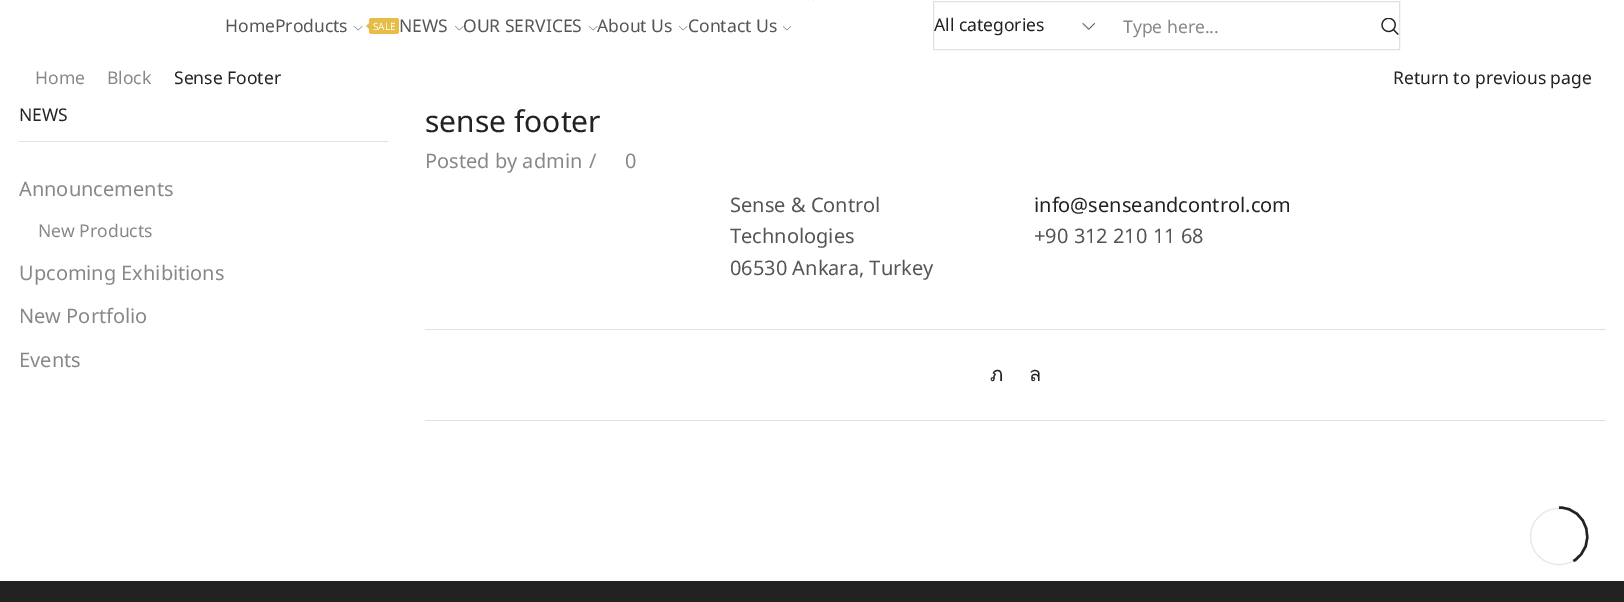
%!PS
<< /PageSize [1624 602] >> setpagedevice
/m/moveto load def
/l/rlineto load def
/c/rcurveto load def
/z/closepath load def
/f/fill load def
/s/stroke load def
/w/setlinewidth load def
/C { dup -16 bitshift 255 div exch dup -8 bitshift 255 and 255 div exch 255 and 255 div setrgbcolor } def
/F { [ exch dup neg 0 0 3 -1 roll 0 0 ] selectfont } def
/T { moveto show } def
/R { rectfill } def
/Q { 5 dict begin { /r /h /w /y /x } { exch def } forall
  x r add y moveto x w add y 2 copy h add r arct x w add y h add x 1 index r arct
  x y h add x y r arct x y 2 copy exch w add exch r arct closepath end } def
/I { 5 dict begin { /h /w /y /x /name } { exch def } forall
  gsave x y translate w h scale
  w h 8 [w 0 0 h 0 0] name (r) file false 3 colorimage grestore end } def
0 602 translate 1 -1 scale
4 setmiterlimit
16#FFFFFF C
0 0 1624 602 R
16#E6E6E6 C
813 0 1 1 R
/NotoSans-Regular 17.5 F
16#555555 C
(HomeProducts) 225 32 T
(1.rgb) 354 26 9 5 I
16#E6BD47 C
369 18 30 16 2.5 Q f
370 22.5 m 0 7.5 l -4 -4 l z f
/NotoSans-Regular 10 F
16#FFFFFF C
(SALE) 373 30 T
/NotoSans-Regular 17.5 F
16#555555 C
(NEWS) 399 32 T
(2.rgb) 455 26 9 5 I
(OUR SERVICES) 463 32 T
(1.rgb) 589 26 9 5 I
(About Us) 597 32 T
(1.rgb) 679 26 9 5 I
(Contact Us) 688 32 T
(3.rgb) 783 26 8 5 I
16#E1E1E1 C
933.5 1.5 466 48 rectstroke
(4.rgb) 1082 22 13 8 I
16#222222 C
(All categories) 934 31 T
16#888888 C
(Type here...) 1123 33 T
(5.rgb) 1381 18 18 17 I
(Home) 35 84 T
(Block) 107 84 T
16#222222 C
(Sense Footer) 174 84 T
(Return to previous page) 1393 84 T
16#E1E1E1 C
19 141 369 1 R
16#222222 C
(NEWS) 19 121 T
/NotoSans-Regular 20 F
16#888888 C
(Announcements) 19 196 T
/NotoSans-Regular 17.5 F
(New Products) 38 237 T
/NotoSans-Regular 20 F
(Upcoming Exhibitions) 19 280 T
(New Portfolio) 19 323 T
(Events) 19 367 T
/NotoSans-Regular 30 F
16#222222 C
(sense footer) 425 132 T
/NotoSans-Regular 20 F
16#888888 C
(Posted by admin) 425 168 T
(/) 589 168 T
(0) 625 168 T
16#555555 C
(Sense & Control) 730 212 T
(Technologies) 730 243 T
(06530 Ankara, Turkey) 730 275 T
16#222222 C
(info@senseandcontrol.com) 1034 212 T
16#555555 C
(+90 312 210 11 68) 1034 243 T
16#E1E1E1 C
425 329 1181 1 R
425 420 1181 1 R
/Loma-Regular 20 F
16#222222 C
(ภ) 990 381 T
(ล) 1029 381 T
0 581 1624 21 R
16#E7E7E7 C
1530.5 508.5 57 56 28 Q s
16#222222 C
2.4 w
1559 507.5 m 29 0 39 38.5 14.5 53.5 c s
showpage
